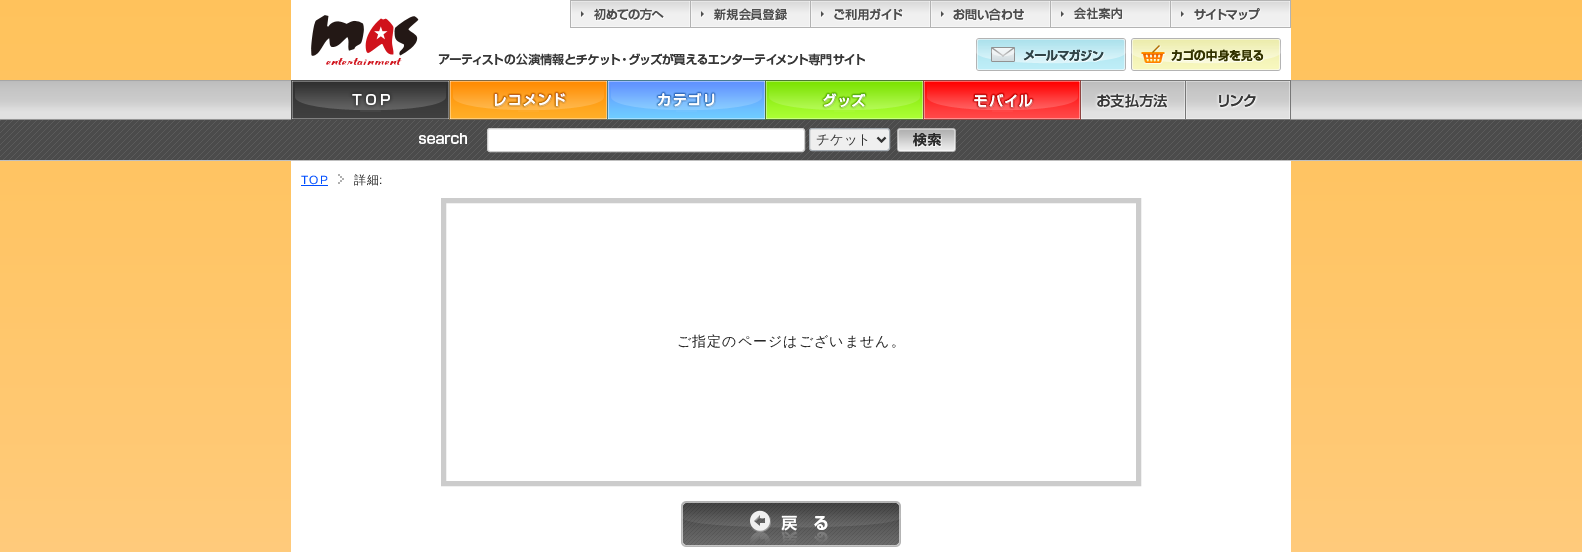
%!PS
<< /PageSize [1582 552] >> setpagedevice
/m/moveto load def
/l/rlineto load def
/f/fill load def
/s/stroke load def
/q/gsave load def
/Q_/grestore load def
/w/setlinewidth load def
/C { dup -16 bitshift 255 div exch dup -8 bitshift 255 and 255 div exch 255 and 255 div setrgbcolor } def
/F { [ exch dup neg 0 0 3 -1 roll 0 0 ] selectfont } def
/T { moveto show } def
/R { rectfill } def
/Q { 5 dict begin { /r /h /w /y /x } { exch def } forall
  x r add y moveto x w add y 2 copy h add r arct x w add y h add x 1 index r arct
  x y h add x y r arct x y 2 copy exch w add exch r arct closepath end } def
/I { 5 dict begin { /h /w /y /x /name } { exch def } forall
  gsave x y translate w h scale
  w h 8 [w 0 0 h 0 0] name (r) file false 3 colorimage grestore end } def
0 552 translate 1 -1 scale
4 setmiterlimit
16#FFFFFF C
0 0 1582 552 R
(1.rgb) 0 0 1582 552 I
291 0 1000 80 R
(2.rgb) 311 15 108 50 I
(3.rgb) 570 0 120 28 I
(4.rgb) 690 0 120 28 I
(5.rgb) 810 0 120 28 I
(6.rgb) 930 0 120 28 I
(7.rgb) 1050 0 120 28 I
(8.rgb) 1170 0 121 28 I
(9.rgb) 438 53 427 13 I
(10.rgb) 976 38 150 33 I
(11.rgb) 1131 38 150 33 I
(12.rgb) 291 80 158 40 I
(13.rgb) 449 80 158 40 I
(14.rgb) 607 80 158 40 I
(15.rgb) 765 80 158 40 I
(16.rgb) 923 80 158 40 I
(17.rgb) 1081 80 105 40 I
(18.rgb) 1186 80 105 40 I
(19.rgb) 419 133 48 11 I
487.5 128.5 317 23 2.5 Q q f Q_
16#CCCCCC C
s
16#EFEFEF C
809.5 128.5 80 22 2.5 Q q f Q_
16#A5ACB2 C
s
16#333333 C
2 w
877.5 137.5 m 4 4 l 4 -4 l s
/WenQuanYiZenHei-Medium 13.5 F
(チケット) 816 144 T
(20.rgb) 897 128 59 24 I
16#FFFFFF C
291 161 1000 391 R
/LiberationSans-Regular 12 F
16#004EFF C
301 184 m 1 0 (TOP) ashow
301 185 27 1 R
(21.rgb) 338 174 6 10 I
/WenQuanYiZenHei-Medium 12 F
16#262626 C
354 184 m 1 0 (詳細) ashow
/LiberationSans-Regular 12 F
379 184 m 1 0 (:) ashow
16#CCCCCC C
5 w
443.5 200.5 695 283 rectstroke
/WenQuanYiZenHei-Medium 14 F
16#262626 C
677 346 m 1 0 (ご指定のページはございません。) ashow
(22.rgb) 681 501 220 46 I
showpage
